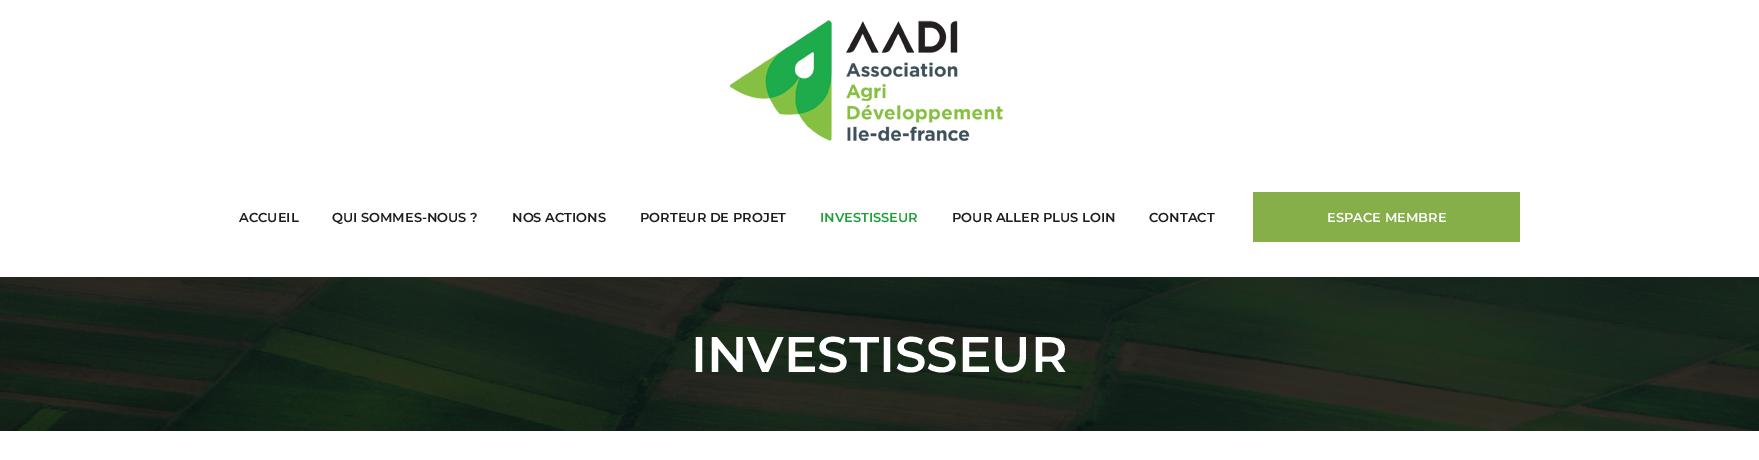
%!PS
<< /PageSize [1759 460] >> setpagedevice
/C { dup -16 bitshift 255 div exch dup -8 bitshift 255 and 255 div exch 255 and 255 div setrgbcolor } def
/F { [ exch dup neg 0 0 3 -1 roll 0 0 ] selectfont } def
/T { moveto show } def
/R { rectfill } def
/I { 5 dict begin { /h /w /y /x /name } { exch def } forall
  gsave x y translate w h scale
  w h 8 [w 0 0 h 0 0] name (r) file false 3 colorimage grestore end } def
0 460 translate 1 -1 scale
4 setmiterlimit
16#FFFFFF C
0 0 1759 460 R
(1.rgb) 730 20 273 121 I
/Montserrat-SemiBold 13 F
16#1D1D1B C
(ACCUEIL) 239 222 T
(QUI SOMMES-NOUS ?) 332 222 T
(NOS ACTIONS) 512 222 T
(PORTEUR DE PROJET) 640 222 T
16#1DA038 C
(INVESTISSEUR) 820 222 T
16#1D1D1B C
(POUR ALLER PLUS LOIN) 952 222 T
(CONTACT) 1149 222 T
16#86AF49 C
1253 192 267 50 R
16#FFFFFF C
(ESPACE MEMBRE) 1327 222 T
(2.rgb) 0 277 1759 154 I
/Montserrat-SemiBold 50 F
(INVESTISSEUR) 691 372 T
showpage
